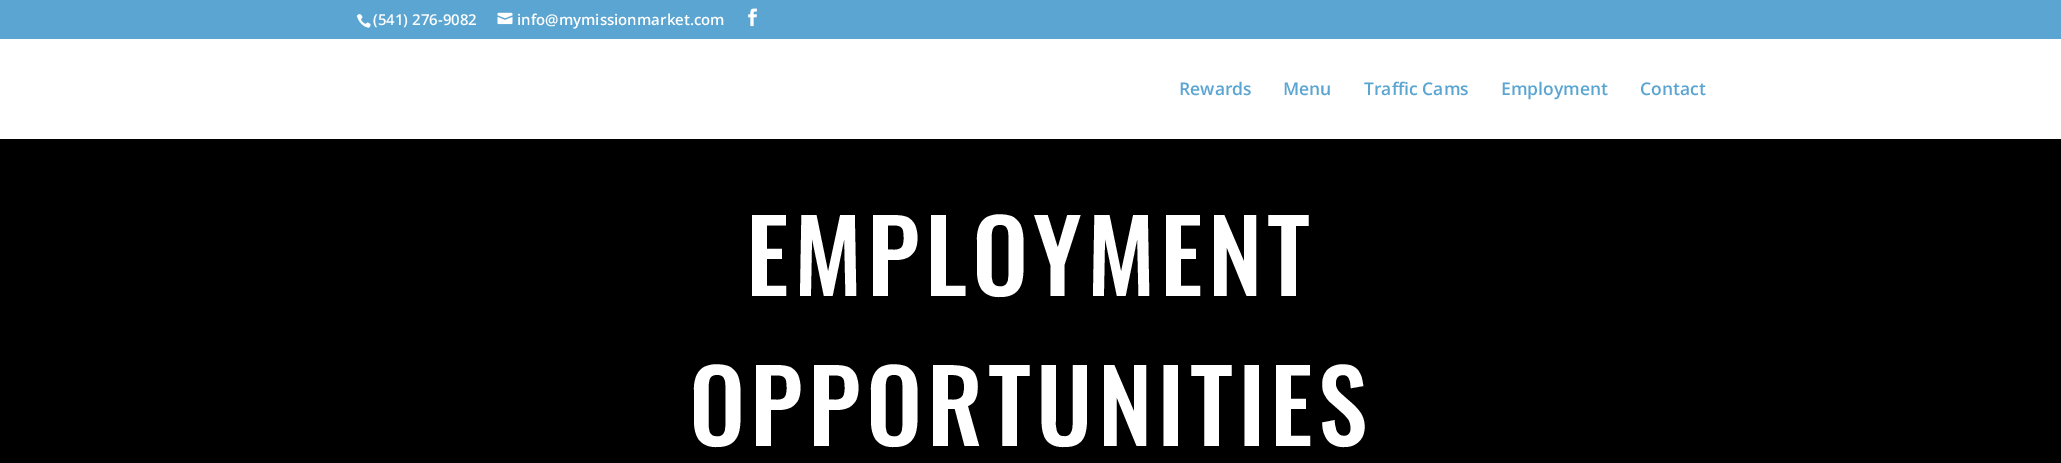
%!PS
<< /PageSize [2061 463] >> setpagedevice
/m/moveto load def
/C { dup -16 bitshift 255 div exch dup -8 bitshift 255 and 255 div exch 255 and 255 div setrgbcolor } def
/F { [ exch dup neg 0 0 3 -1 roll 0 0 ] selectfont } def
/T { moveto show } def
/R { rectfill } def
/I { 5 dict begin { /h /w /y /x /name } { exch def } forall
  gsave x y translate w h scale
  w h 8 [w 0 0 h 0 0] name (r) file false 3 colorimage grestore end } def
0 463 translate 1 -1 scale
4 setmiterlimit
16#FFFFFF C
0 0 2061 463 R
16#5AA5D2 C
0 0 2061 39 R
(1.rgb) 356 14 15 14 I
/OpenSans-SemiBold 15 F
16#FFFFFF C
(\(541\) 276-9082) 373 25 T
(2.rgb) 497 12 16 13 I
(info@mymissionmarket.com) 517 25 T
(3.rgb) 748 8 9 19 I
/OpenSans-SemiBold 17.5 F
16#5AA5D2 C
(Rewards) 1179 95 T
(Menu) 1283 95 T
(Traffic Cams) 1364 95 T
(Employment) 1501 95 T
(Contact) 1640 95 T
16#000000 C
0 139 2061 324 R
/Oswald-Medium 100 F
16#FFFFFF C
746 296 m 5 0 (EMPLOYMENT) ashow
689 446 m 5 0 (OPPORTUNITIES) ashow
showpage
